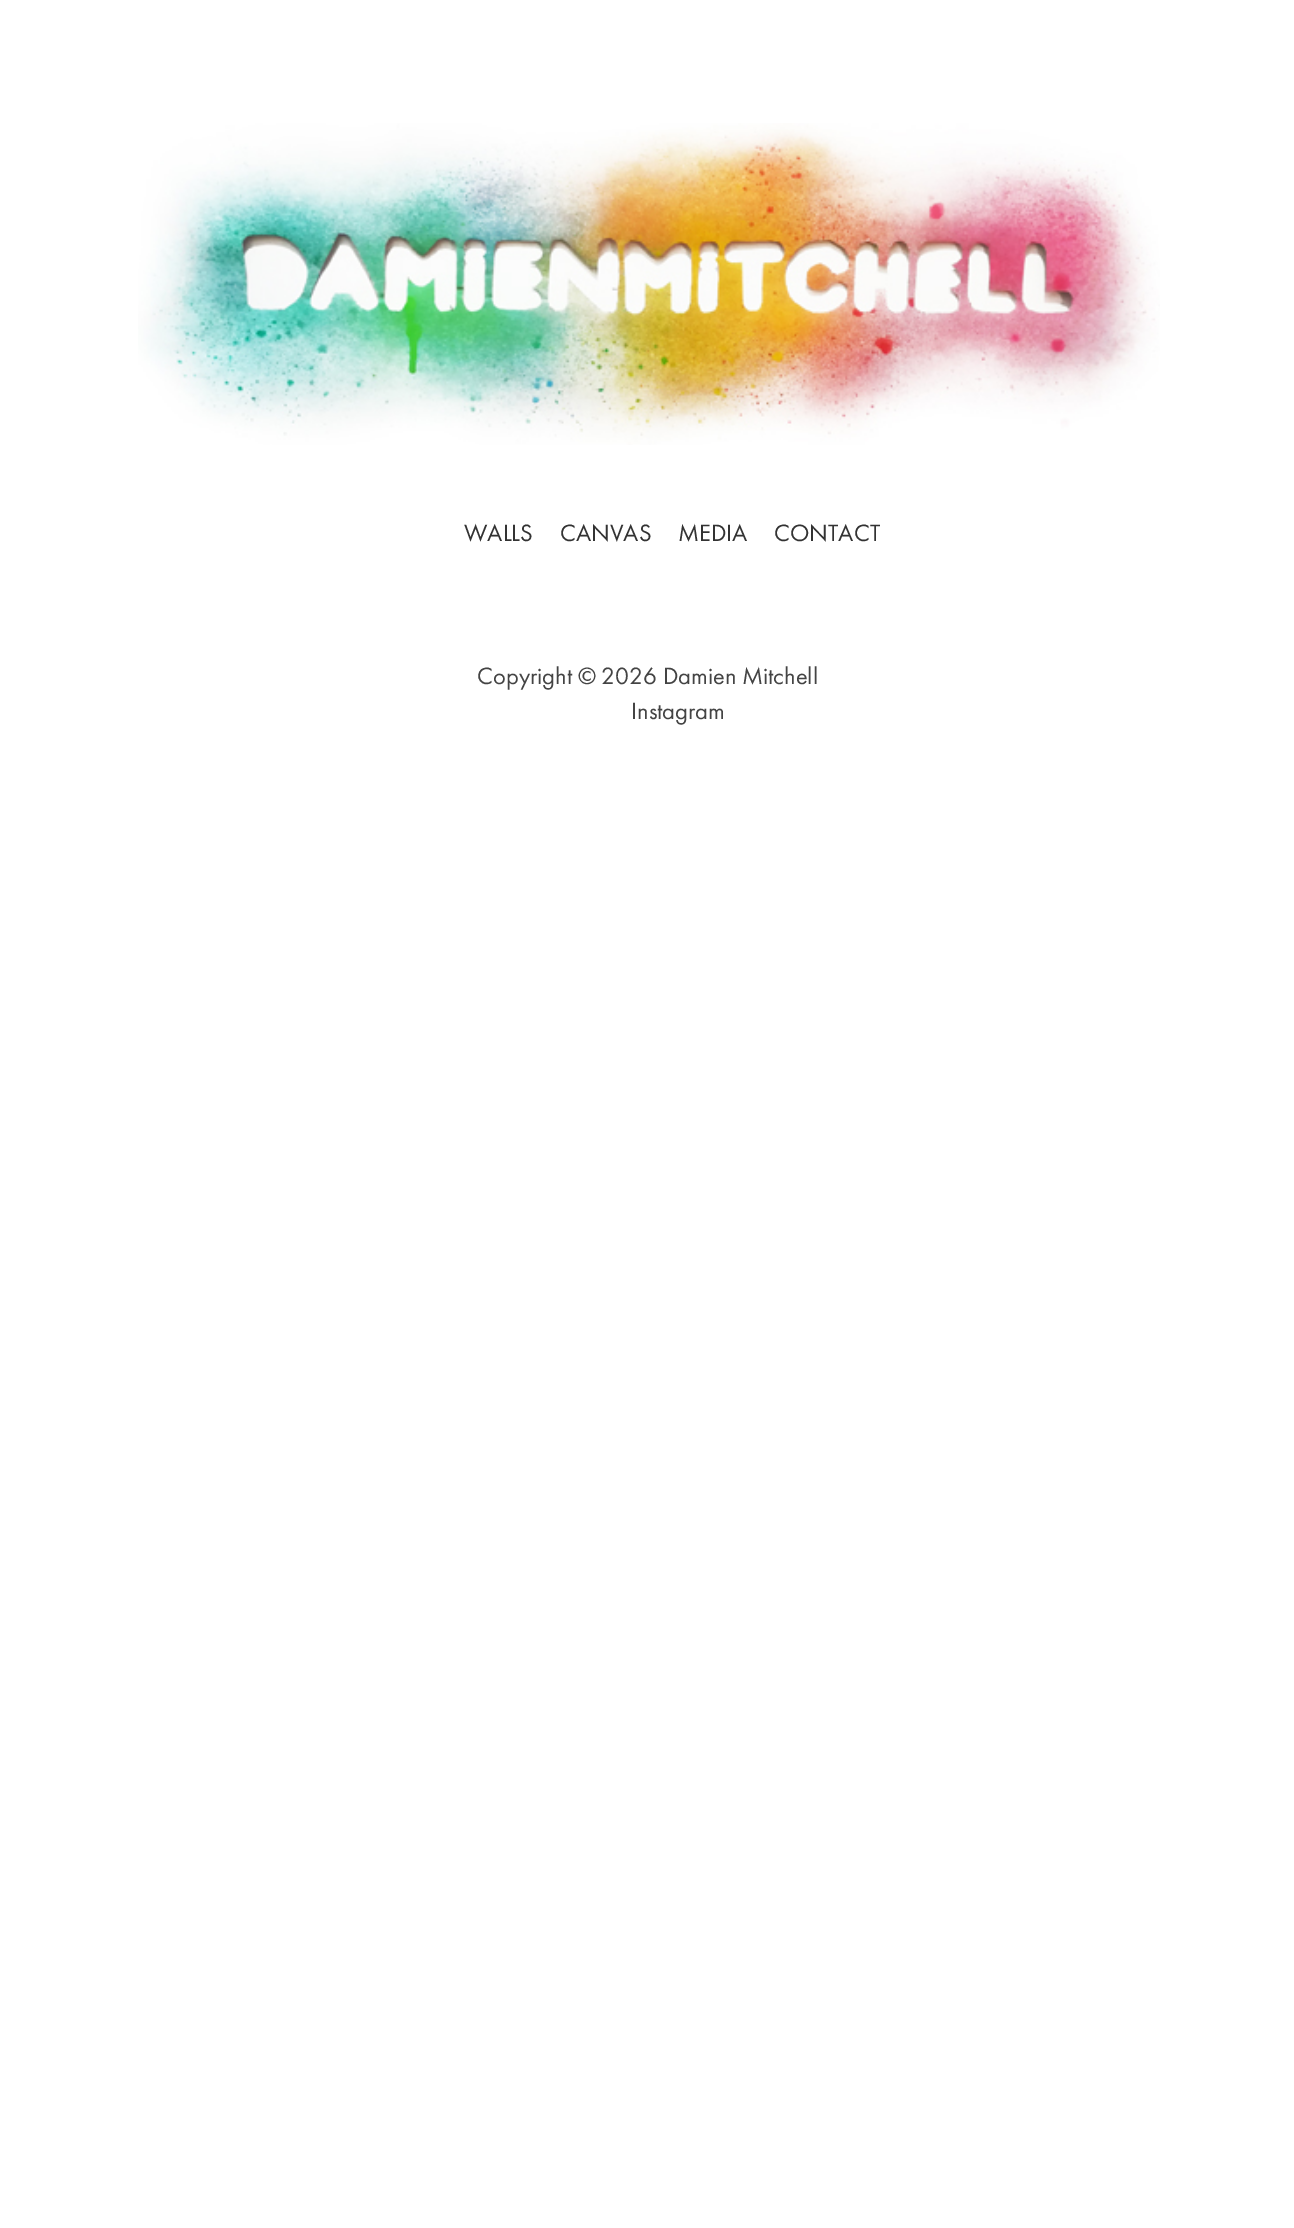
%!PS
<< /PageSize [1294 2228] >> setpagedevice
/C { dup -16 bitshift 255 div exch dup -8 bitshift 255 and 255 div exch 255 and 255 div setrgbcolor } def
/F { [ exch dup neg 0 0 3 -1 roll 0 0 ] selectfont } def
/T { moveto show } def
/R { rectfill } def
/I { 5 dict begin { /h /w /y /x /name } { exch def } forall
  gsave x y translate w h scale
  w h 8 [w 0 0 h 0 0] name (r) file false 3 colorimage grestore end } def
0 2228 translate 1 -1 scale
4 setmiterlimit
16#FFFFFF C
0 0 1294 2228 R
(1.rgb) 138 123 1022 322 I
/FuturaPT-Regular 24.5 F
16#333333 C
(WALLS) 464 541 T
(CANVAS) 560 541 T
(MEDIA) 678 541 T
(CONTACT) 774 541 T
16#444444 C
(Copyright © 2026 Damien Mitchell) 477 684 T
(Instagram) 631 719 T
showpage
